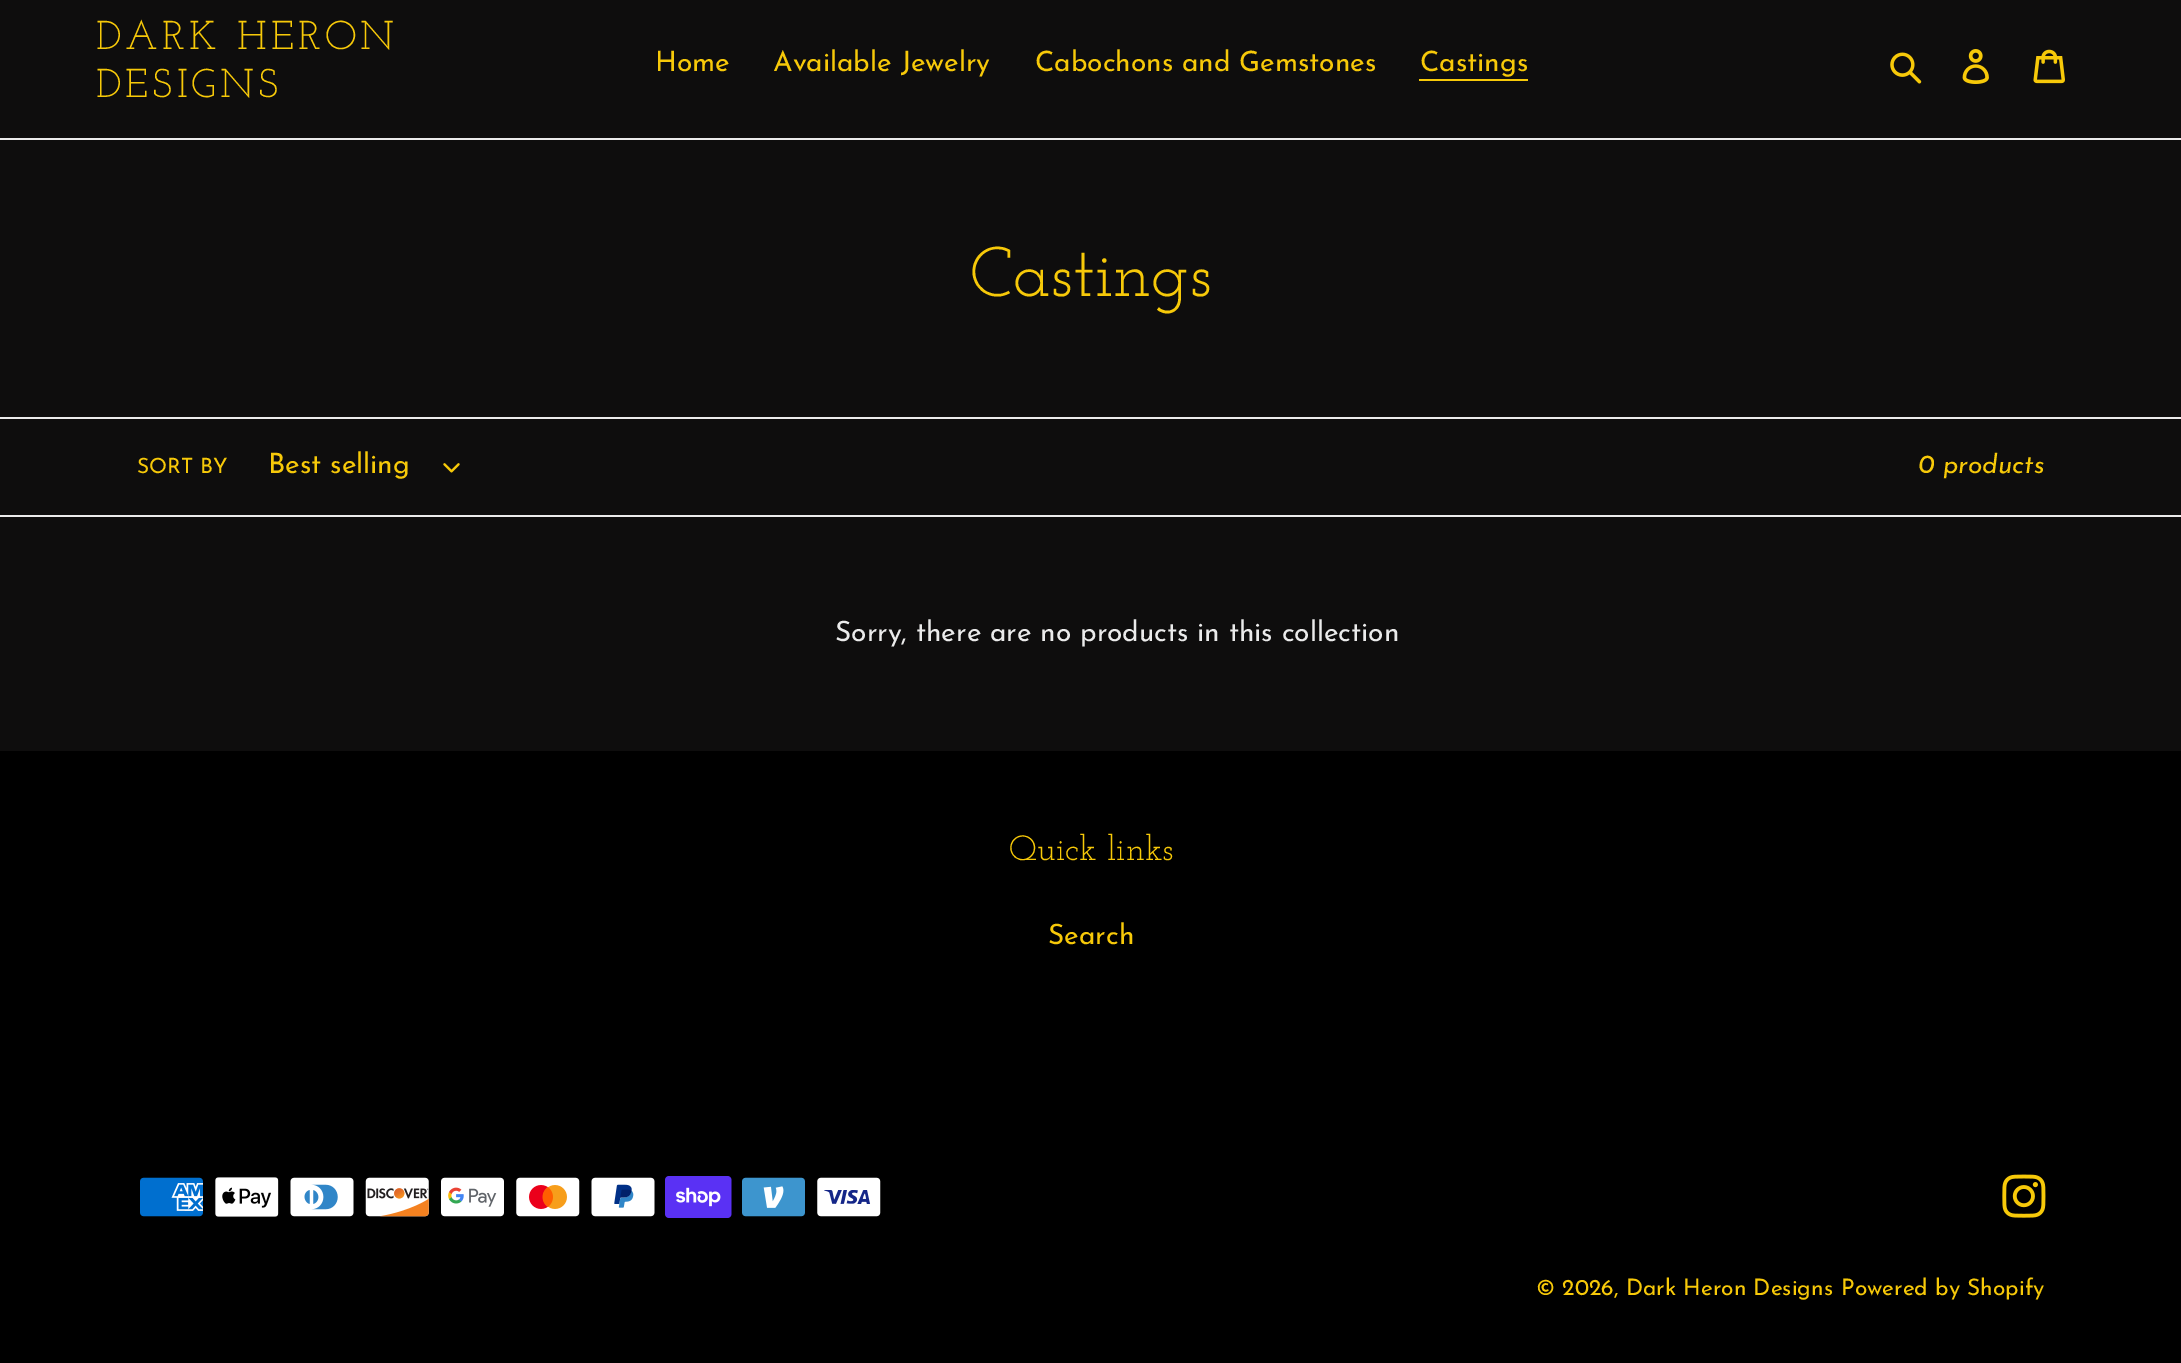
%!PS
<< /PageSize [2181 1363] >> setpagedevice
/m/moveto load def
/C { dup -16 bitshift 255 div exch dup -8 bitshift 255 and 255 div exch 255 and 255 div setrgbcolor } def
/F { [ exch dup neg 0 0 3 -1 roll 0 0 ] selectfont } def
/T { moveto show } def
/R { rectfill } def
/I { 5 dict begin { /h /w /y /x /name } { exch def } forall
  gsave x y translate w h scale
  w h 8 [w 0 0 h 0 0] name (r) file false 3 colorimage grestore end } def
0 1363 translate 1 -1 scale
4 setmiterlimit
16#0E0D0D C
0 0 2181 1363 R
16#EBEBEB C
0 138 2181 2 R
/JosefinSlab-Regular 40.25 F
16#F7C909 C
96 49 m 4 0 (DARK HERON) ashow
96 97 m 4 0 (DESIGNS) ashow
/JosefinSans-Regular 28 F
(Home) 655 71 T
(Available Jewelry) 773 71 T
(Cabochons and Gemstones) 1035 71 T
(Castings) 1420 71 T
1419 79 109 2 R
(1.rgb) 1890 52 32 32 I
(2.rgb) 1962 49 27 35 I
(3.rgb) 2033 49 32 35 I
/JosefinSlab-Regular 70 F
(Castings) 970 296 T
16#EBEBEB C
0 417 2181 2 R
0 515 2181 2 R
/JosefinSans-Regular 21 F
16#F7C909 C
(SORT BY) 137 473 T
/JosefinSans-Regular 28 F
(Best selling) 268 473 T
(4.rgb) 443 463 17 10 I
/JosefinSans-Italic 26.25 F
(0 products) 1918 473 T
/JosefinSans-Regular 28 F
16#EBEBEB C
(Sorry, there are no products in this collection) 835 641 T
16#000000 C
0 751 2181 612 R
/JosefinSlab-Regular 35 F
16#F7C909 C
(Quick links) 1009 860 T
/JosefinSans-Regular 28 F
(Search) 1048 944 T
(5.rgb) 140 1177 63 40 I
(6.rgb) 215 1177 64 40 I
(7.rgb) 290 1177 64 40 I
(8.rgb) 365 1177 64 40 I
(9.rgb) 441 1177 63 40 I
(10.rgb) 516 1177 64 40 I
(11.rgb) 591 1177 64 40 I
(12.rgb) 665 1176 67 42 I
(13.rgb) 742 1177 63 40 I
(14.rgb) 817 1177 64 40 I
(15.rgb) 2002 1174 44 44 I
/JosefinSans-Regular 22.75 F
(© 2026, Dark Heron Designs) 1536 1295 T
(Powered by Shopify) 1841 1295 T
showpage
